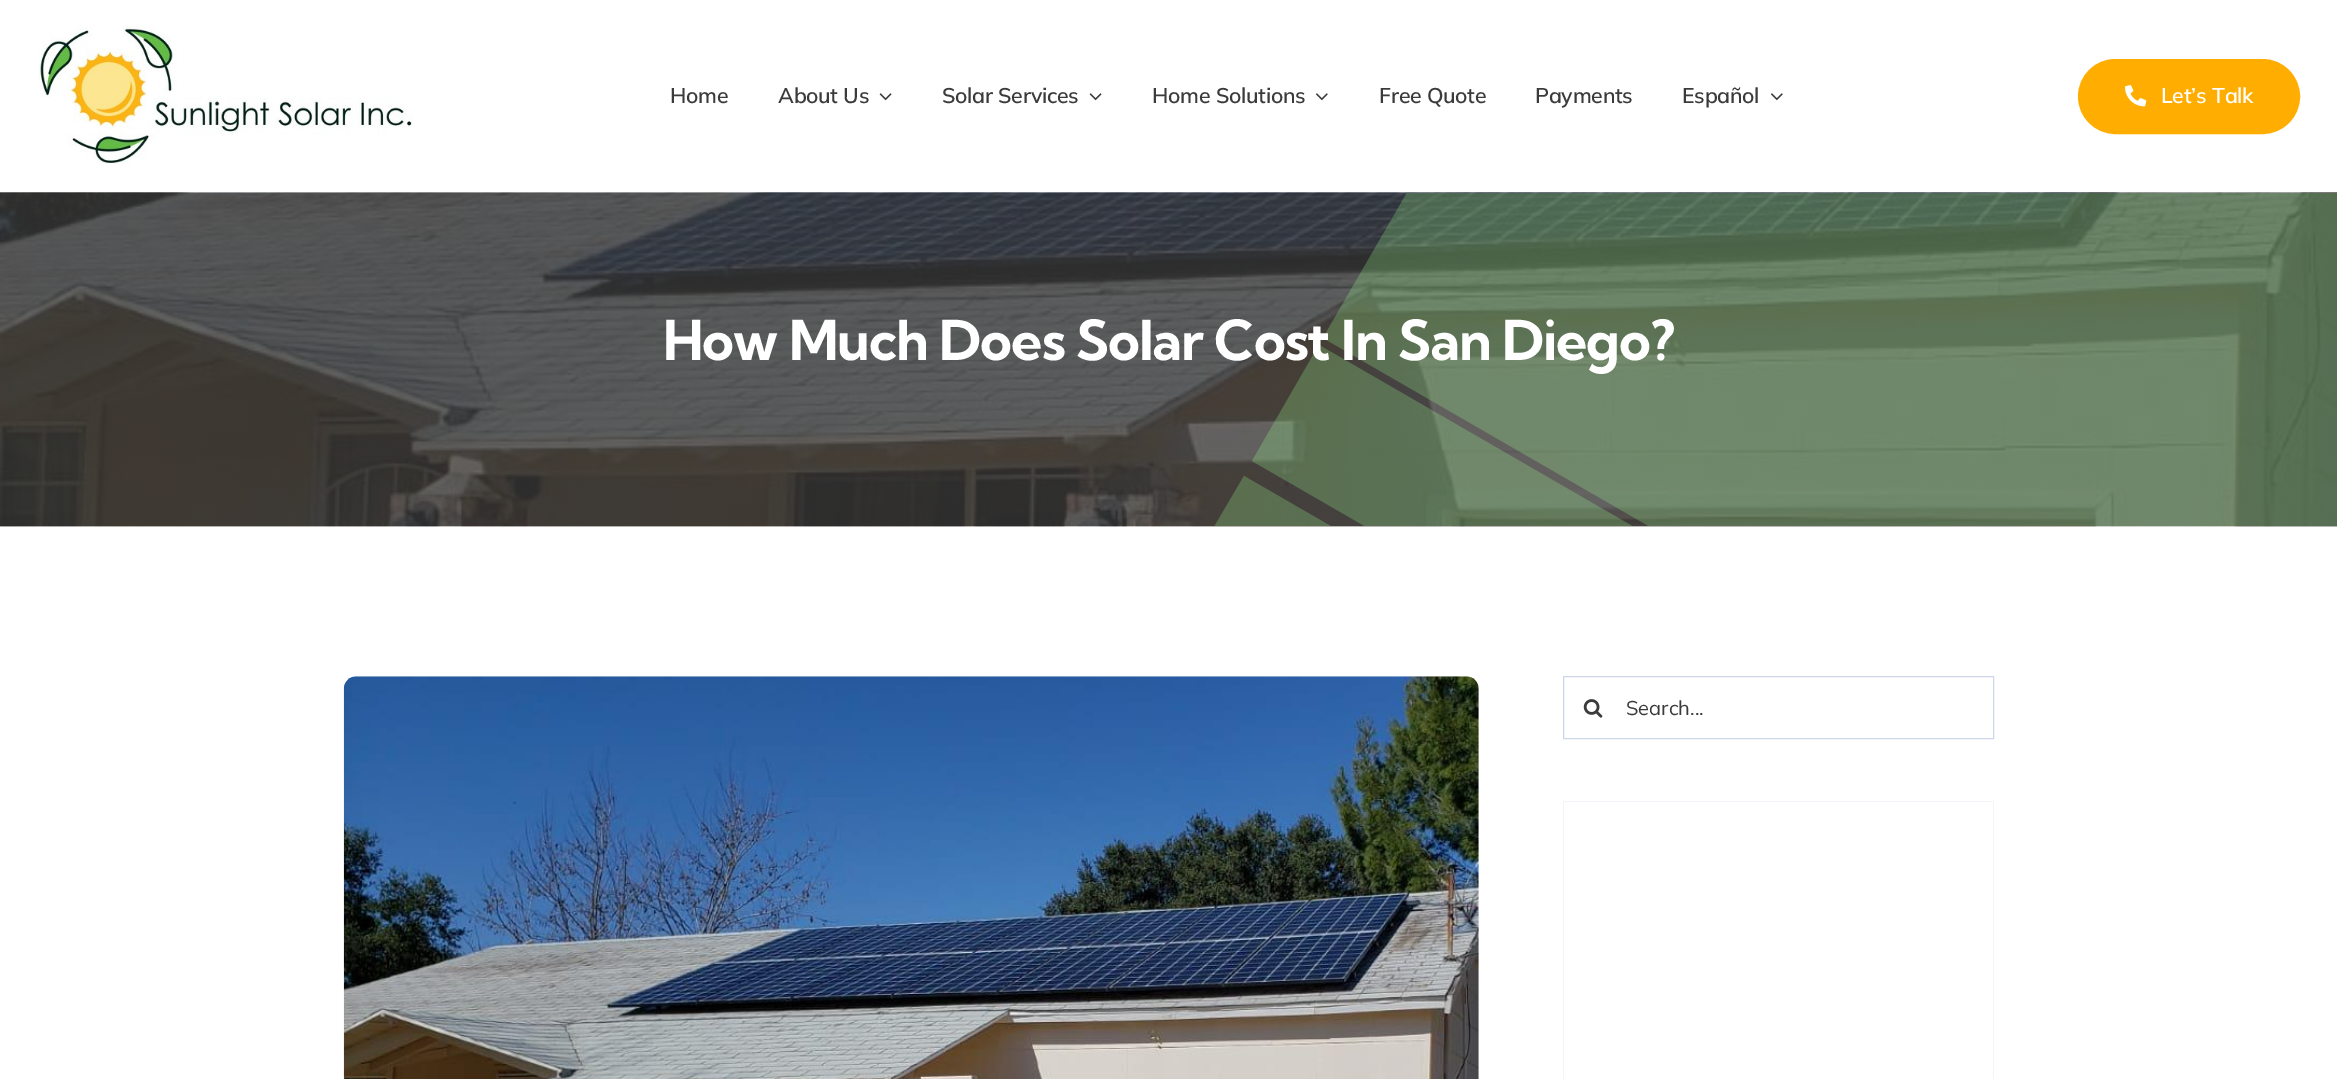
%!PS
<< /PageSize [2337 1079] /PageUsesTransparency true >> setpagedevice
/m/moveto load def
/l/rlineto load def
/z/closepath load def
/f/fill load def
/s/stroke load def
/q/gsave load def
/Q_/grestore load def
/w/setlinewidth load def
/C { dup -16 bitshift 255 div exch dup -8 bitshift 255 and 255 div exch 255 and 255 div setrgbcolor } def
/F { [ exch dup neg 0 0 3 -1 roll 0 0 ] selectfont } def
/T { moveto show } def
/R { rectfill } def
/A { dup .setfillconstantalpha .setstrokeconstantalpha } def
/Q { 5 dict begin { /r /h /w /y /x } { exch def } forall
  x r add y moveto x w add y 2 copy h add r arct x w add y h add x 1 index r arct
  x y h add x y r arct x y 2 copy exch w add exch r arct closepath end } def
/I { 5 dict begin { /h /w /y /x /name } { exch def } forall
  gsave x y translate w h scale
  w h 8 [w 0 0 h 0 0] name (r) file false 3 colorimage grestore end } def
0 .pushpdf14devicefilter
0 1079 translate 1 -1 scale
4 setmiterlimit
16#FFFFFF C
0 0 2337 1079 R
(1.rgb) 38 25 375 139 I
/Mulish-SemiBold 21.25 F
16#3B3B3B C
670 103 m -.25 0 (Home) ashow
778 103 m -.25 0 (About Us) ashow
(2.rgb) 879 93 13 8 I
942 103 m -.25 0 (Solar Services) ashow
(2.rgb) 1089 93 13 8 I
1152 103 m -.25 0 (Home Solutions) ashow
(3.rgb) 1316 93 12 8 I
1379 103 m -.25 0 (Free Quote) ashow
1535 103 m -.25 0 (Payments) ashow
1682 103 m -.25 0 (Español) ashow
(3.rgb) 1771 93 12 8 I
16#FFAD00 C
2079.5 60.5 219 72 36 Q q f Q_
3 w
s
(4.rgb) 2125 85 22 22 I
16#FFFFFF C
2161 103 m -.25 0 (Let’s Talk) ashow
(5.rgb) 0 192 2337 335 I
q
0 193 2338 333 rectclip
0.25 A
16#9DFF8E C
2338 924 m 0 -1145 l -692 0 l -323 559 l z 1025 940 m -49 0 l 12 -21 l z 1272 940 m -81 0 l -161 -93 l 20 -35 l z 1507 940 m -103 0 l -321 -185 l 25 -45 l z 1756 940 m -150 0 l -473 -273 l 38 -65 l z 2048 940 m -225 0 l -636 -367 l 57 -97 l z 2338 934 m 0 6 l -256 0 l -830 -479 l 67 -116 l z eofill
Q_
/KumbhSans-Bold 55 F
663 360 m -1.1 0 (How Much Does Solar Cost In San Diego?) ashow
(6.rgb) 343 676 1136 403 I
16#CED6EA C
1 w
1563.5 676.5 430 62 rectstroke
(7.rgb) 1583 699 20 19 I
/Mulish-Regular 20 F
16#3B3B3B C
(Search...) 1626 715 T
16#F4F5FA C
1563 801 431 1 R
1993 801 1 278 R
1563 801 1 278 R
.poppdf14devicefilter showpage
